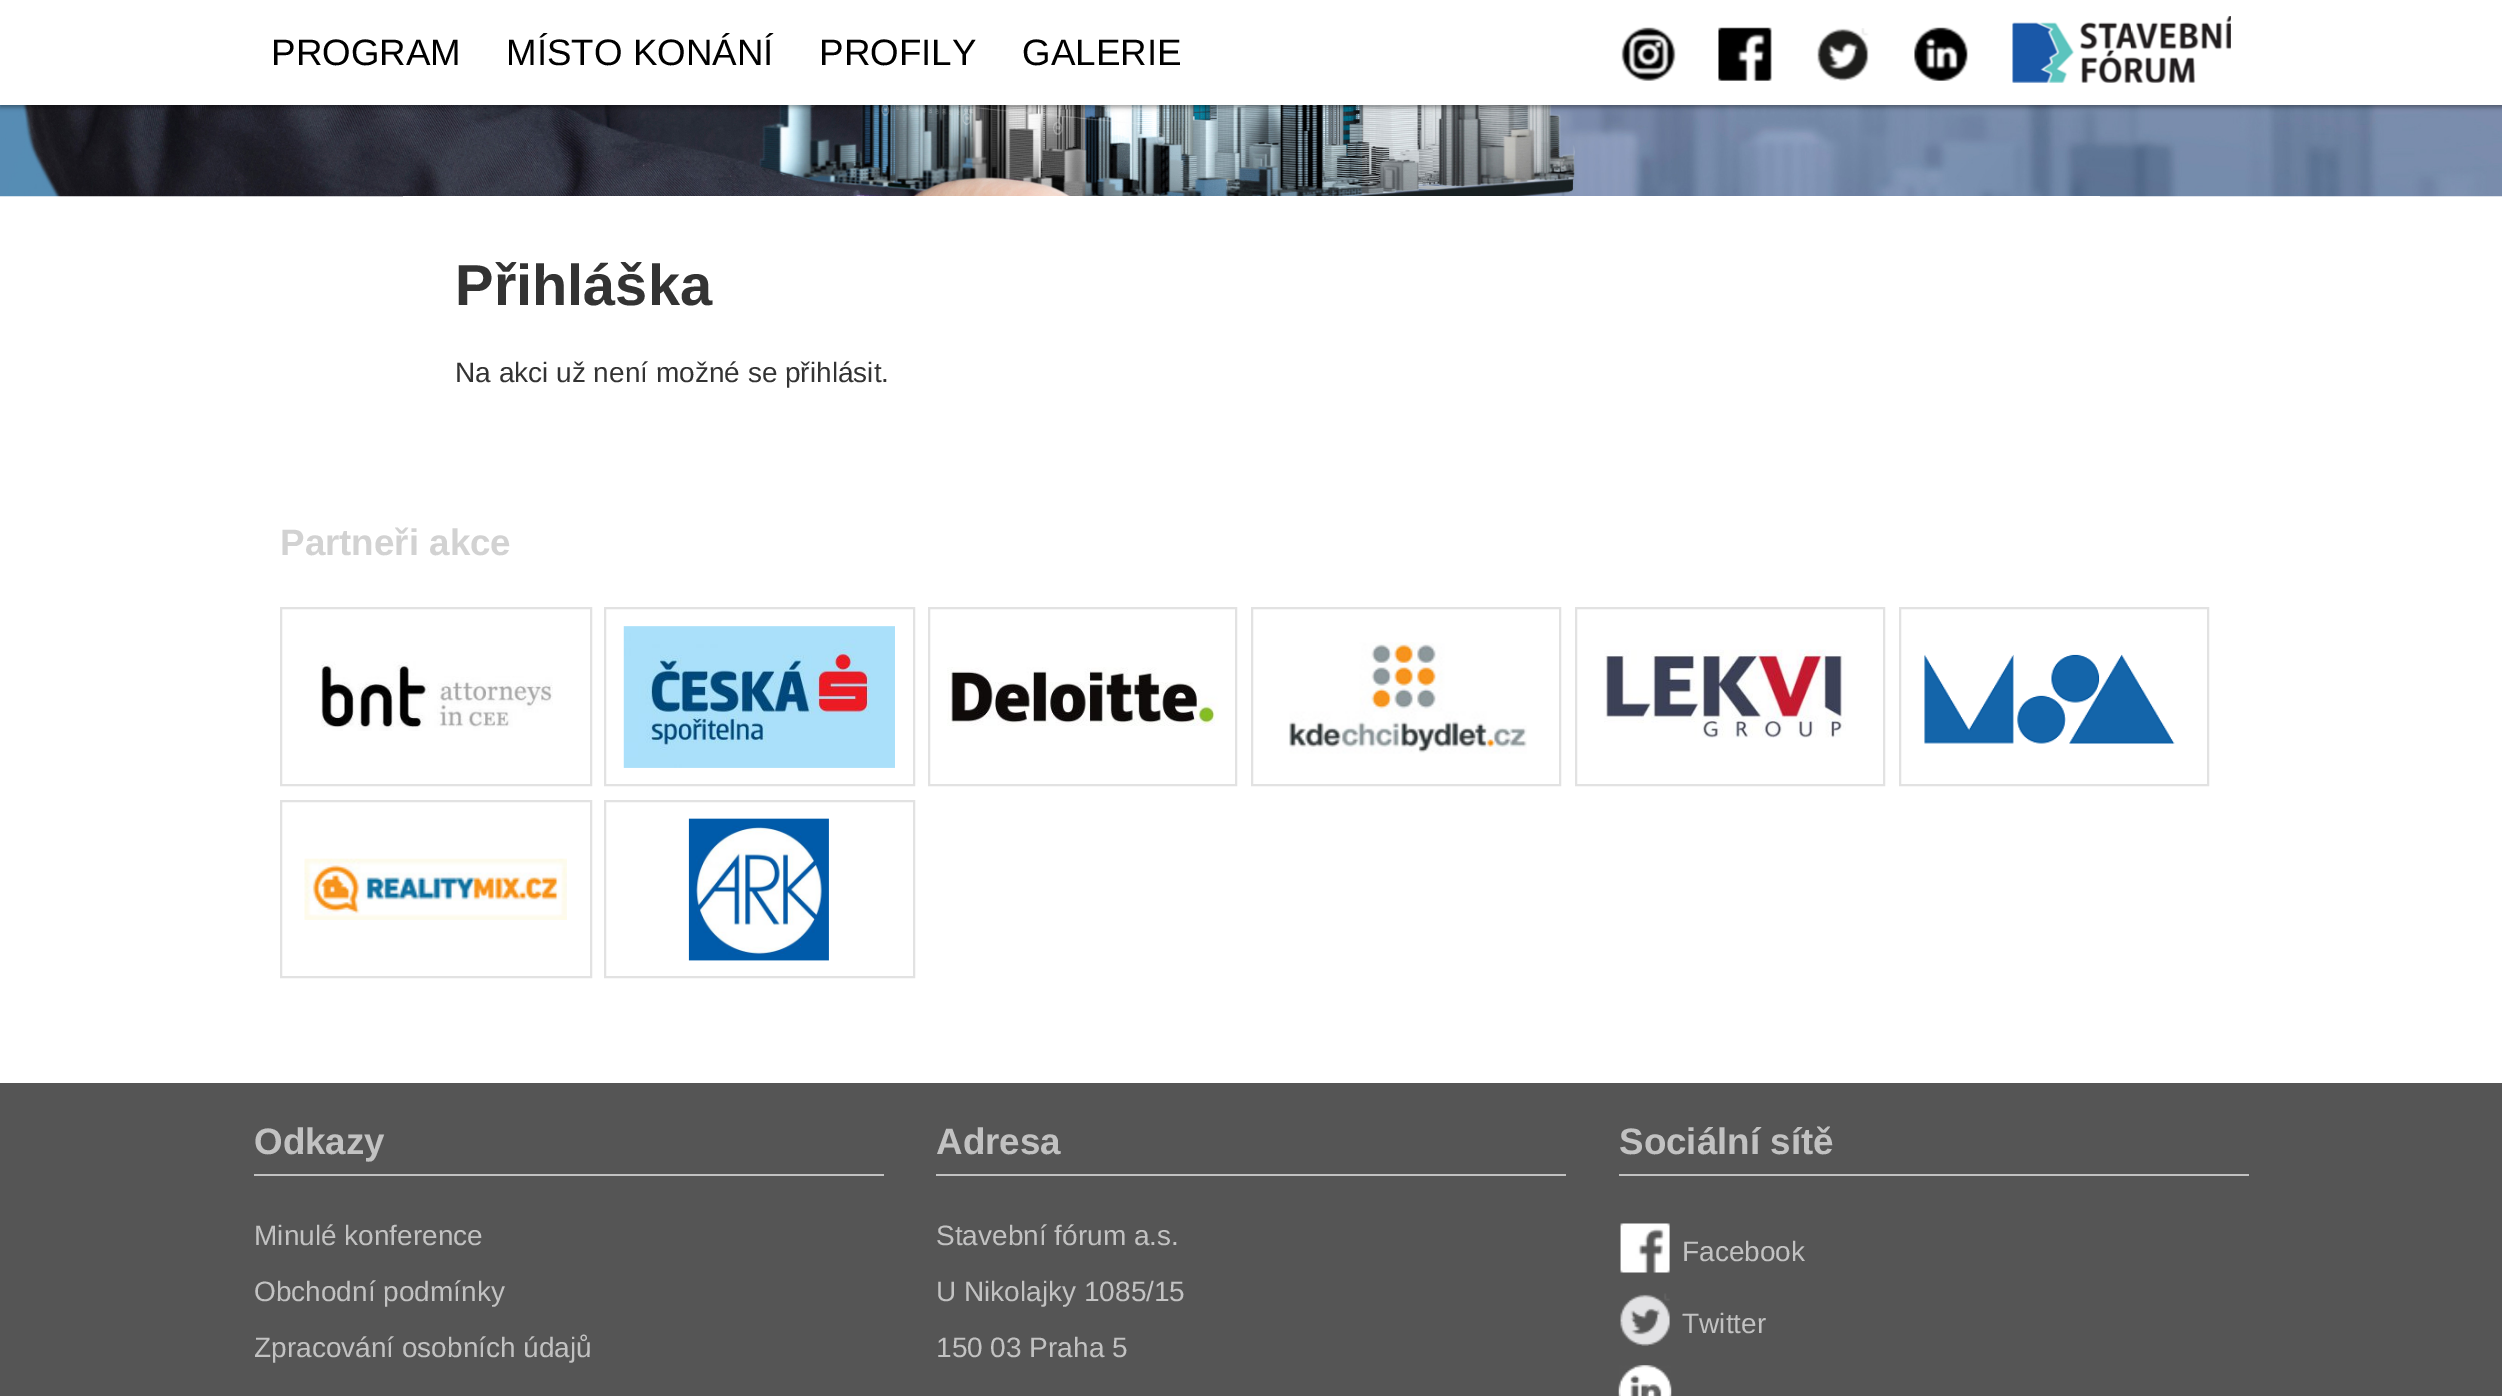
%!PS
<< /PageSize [2502 1396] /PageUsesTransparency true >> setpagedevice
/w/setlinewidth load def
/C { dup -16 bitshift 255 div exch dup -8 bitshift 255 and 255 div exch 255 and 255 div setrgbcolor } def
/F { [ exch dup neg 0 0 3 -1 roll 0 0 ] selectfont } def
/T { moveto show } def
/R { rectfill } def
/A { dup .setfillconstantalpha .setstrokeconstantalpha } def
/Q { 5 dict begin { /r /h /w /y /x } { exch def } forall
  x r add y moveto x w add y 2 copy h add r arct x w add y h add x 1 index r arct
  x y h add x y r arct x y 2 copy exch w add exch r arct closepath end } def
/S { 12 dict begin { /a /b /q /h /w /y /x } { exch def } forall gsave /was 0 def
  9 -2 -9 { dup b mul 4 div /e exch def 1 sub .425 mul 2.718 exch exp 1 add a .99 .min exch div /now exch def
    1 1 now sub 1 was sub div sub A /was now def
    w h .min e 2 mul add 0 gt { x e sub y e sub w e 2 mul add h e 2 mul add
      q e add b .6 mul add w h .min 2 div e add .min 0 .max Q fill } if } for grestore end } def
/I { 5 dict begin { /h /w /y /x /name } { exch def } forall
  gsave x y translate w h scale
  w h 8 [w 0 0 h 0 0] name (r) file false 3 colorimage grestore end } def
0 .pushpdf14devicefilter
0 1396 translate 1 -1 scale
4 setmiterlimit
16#FFFFFF C
0 0 2502 1396 R
(6.rgb) 0 105 2502 92 I
16#000000 C
0 2 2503 105 0 2.5 .4 S
16#FFFFFF C
0 0 2502 105 R
/LiberationSans-Regular 36.75 F
16#000000 C
(PROGRAM) 271 65 T
(MÍSTO KONÁNÍ) 506 65 T
(PROFILY) 819 65 T
(GALERIE) 1022 65 T
(1.rgb) 1621 27 55 54 I
(2.rgb) 1718 27 54 54 I
(3.rgb) 1817 28 52 53 I
(4.rgb) 1914 27 54 54 I
(5.rgb) 2012 16 219 67 I
16#FFFFFF C
403 196 1697 1 R
/LiberationSans-Bold 57.75 F
16#333333 C
(Přihláška) 455 305 T
/LiberationSans-Regular 28 F
(Na akci už není možné se přihlásit.) 455 382 T
/LiberationSans-Bold 36.75 F
16#D2D2D2 C
(Partneři akce) 280 555 T
16#E2E2E2 C
2 w
281 608 310 177 rectstroke
(7.rgb) 321 661 232 70 I
605 608 309 177 rectstroke
(8.rgb) 623 626 272 142 I
929 608 307 177 rectstroke
(9.rgb) 947 667 272 59 I
1252 608 308 177 rectstroke
(10.rgb) 1289 642 238 112 I
1576 608 308 177 rectstroke
(11.rgb) 1604 649 242 89 I
1900 608 308 177 rectstroke
(12.rgb) 1924 654 251 90 I
281 801 310 176 rectstroke
(13.rgb) 304 858 263 62 I
605 801 309 176 rectstroke
(14.rgb) 688 818 141 143 I
16#555555 C
0 1083 2502 313 R
16#C2C2C2 C
254 1174 630 2 R
(Odkazy) 254 1154 T
/LiberationSans-Regular 28 F
(Minulé konference) 254 1245 T
(Obchodní podmínky) 254 1301 T
(Zpracování osobních údajů) 254 1357 T
936 1174 630 2 R
/LiberationSans-Bold 36.75 F
(Adresa) 936 1154 T
/LiberationSans-Regular 28 F
(Stavební fórum a.s.) 936 1245 T
(U Nikolajky 1085/15) 936 1301 T
(150 03 Praha 5) 936 1357 T
1619 1174 630 2 R
/LiberationSans-Bold 36.75 F
(Sociální sítě) 1619 1154 T
(15.rgb) 1620 1223 50 50 I
/LiberationSans-Regular 28 F
(Facebook) 1682 1261 T
(16.rgb) 1620 1293 50 53 I
(Twitter) 1682 1333 T
(17.rgb) 1618 1365 54 31 I
.poppdf14devicefilter showpage
